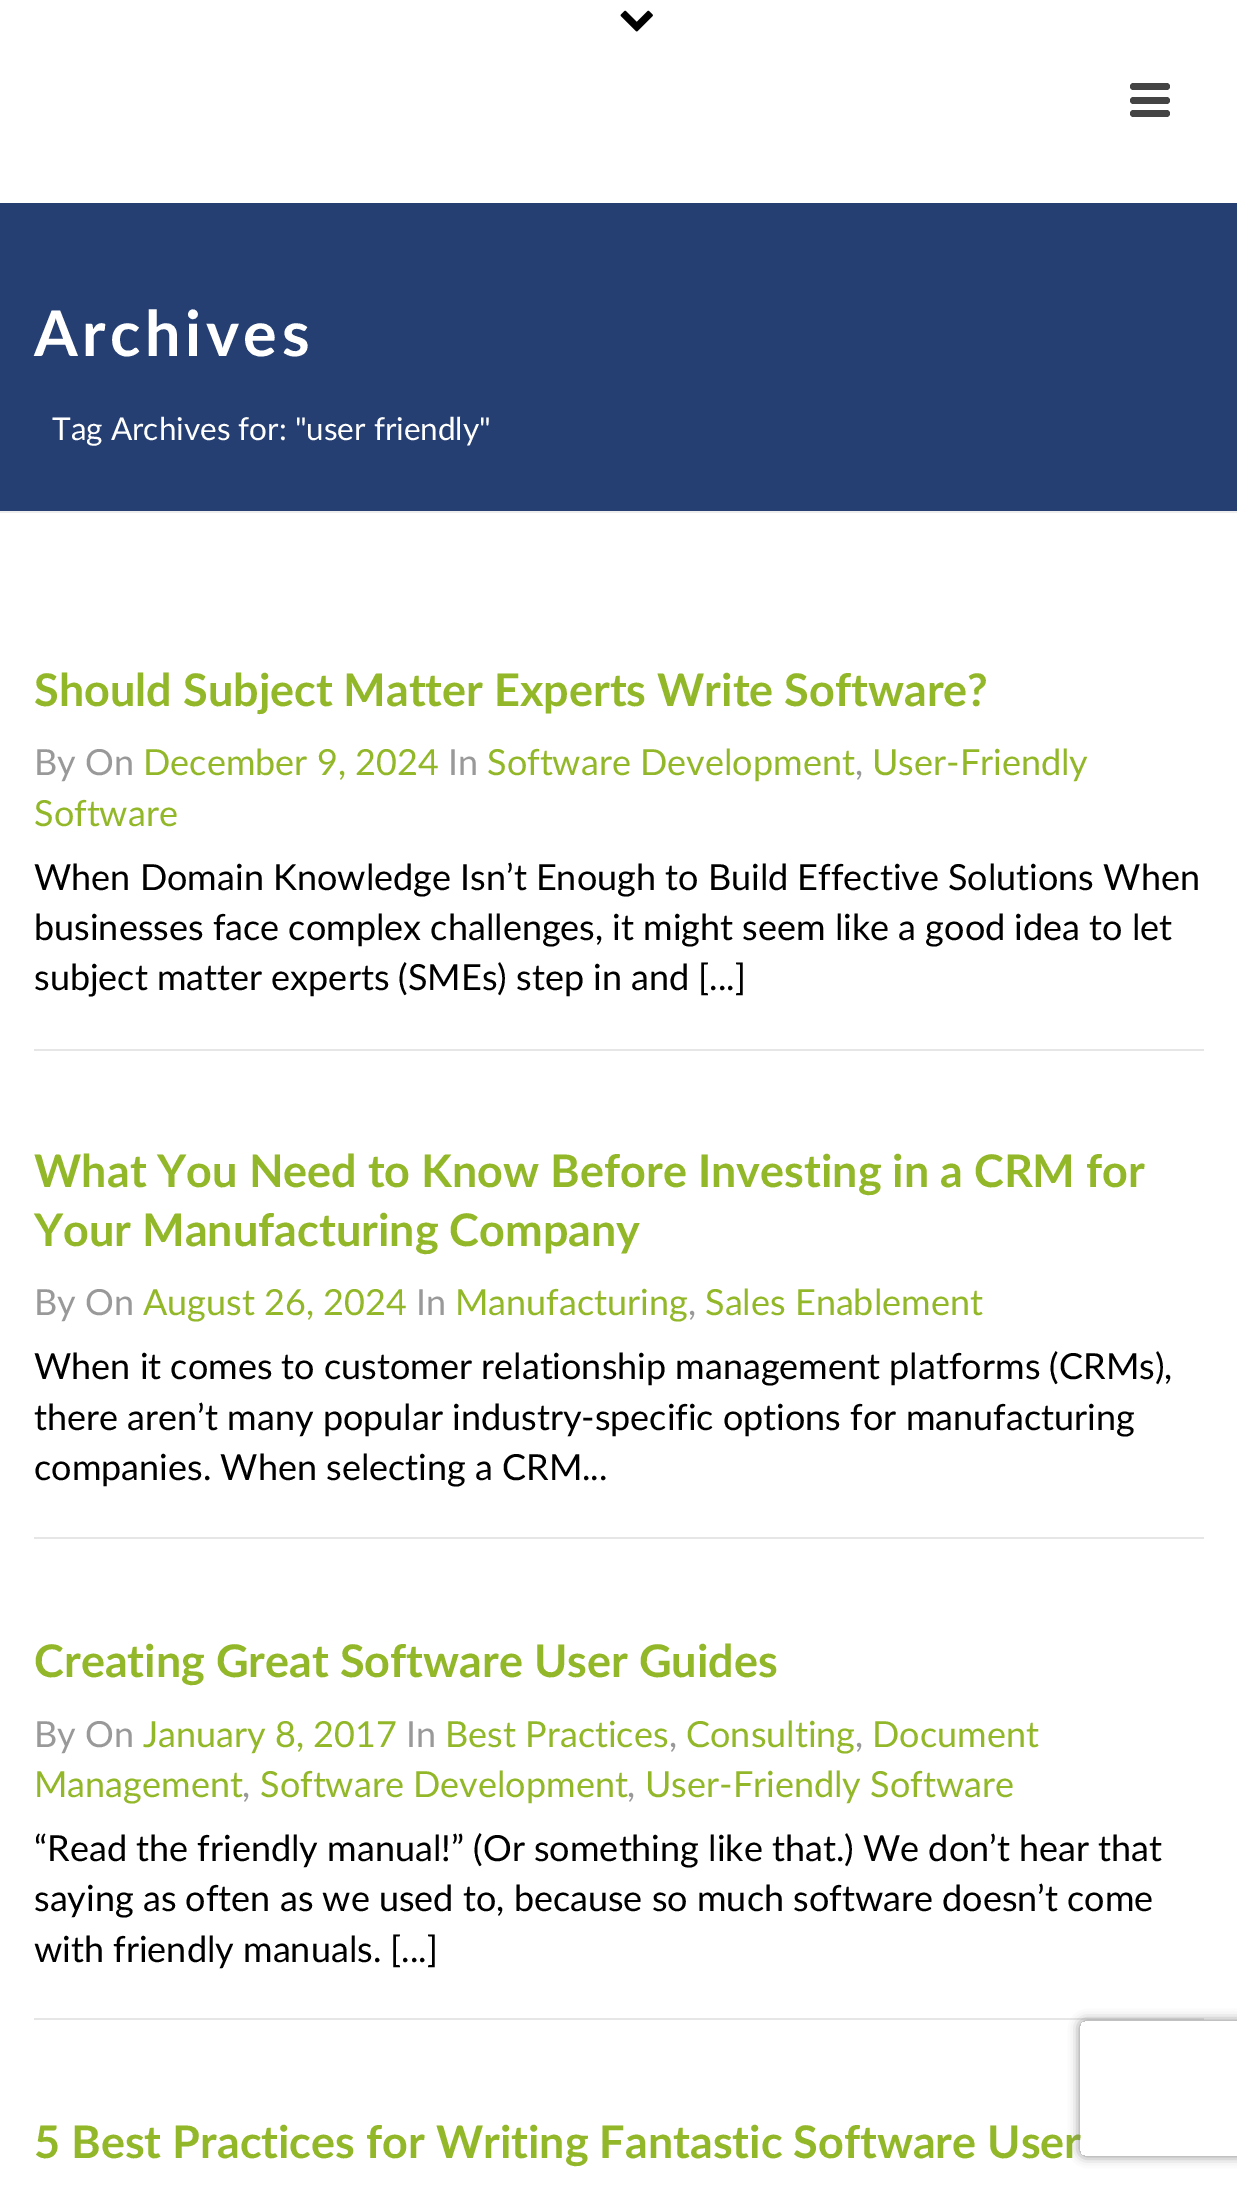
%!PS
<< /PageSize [1237 2187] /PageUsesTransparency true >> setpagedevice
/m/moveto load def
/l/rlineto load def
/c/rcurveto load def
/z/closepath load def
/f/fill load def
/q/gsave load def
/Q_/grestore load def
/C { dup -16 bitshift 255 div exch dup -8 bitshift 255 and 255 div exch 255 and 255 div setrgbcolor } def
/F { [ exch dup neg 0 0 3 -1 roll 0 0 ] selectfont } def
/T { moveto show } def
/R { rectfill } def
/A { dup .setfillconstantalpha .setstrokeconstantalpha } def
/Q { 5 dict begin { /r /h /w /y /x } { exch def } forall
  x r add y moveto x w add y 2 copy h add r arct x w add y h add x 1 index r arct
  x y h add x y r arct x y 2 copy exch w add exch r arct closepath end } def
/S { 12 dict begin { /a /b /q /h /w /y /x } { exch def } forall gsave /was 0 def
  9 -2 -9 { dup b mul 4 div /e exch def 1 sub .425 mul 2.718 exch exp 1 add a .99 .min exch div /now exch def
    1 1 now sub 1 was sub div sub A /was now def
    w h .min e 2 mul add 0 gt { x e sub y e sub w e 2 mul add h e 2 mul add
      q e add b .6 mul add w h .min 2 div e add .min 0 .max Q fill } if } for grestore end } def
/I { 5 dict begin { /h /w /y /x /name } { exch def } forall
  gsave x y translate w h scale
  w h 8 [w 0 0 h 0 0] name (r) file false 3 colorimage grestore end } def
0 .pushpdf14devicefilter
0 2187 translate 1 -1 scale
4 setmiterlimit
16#FFFFFF C
0 0 1237 2187 R
16#263F73 C
0 203 1237 308 R
16#EDEDED C
0 511 1237 2 R
(1.rgb) 620 10 33 22 I
16#444444 C
1130 83 40 7 3.5 Q f
1130 97 40 7 3.5 Q f
1130 110 40 7 3.5 Q f
/Lato-Bold 63 F
16#FFFFFF C
34 356 m 4.5 0 (Archives) ashow
/Lato-Regular 31.5 F
(Tag Archives for: "user friendly") 52 440 T
16#E6E6E6 C
34 1049 1170 2 R
/Lato-Bold 45 F
16#92B729 C
(Should Subject Matter Experts Write Software?) 34 706 T
/Lato-Regular 36 F
16#999999 C
(By On) 34 775 T
16#92B729 C
(December 9, 2024) 143 775 T
16#999999 C
(In) 448 775 T
16#92B729 C
(Software Development) 487 775 T
16#999999 C
(,) 855 775 T
16#92B729 C
(User-Friendly) 872 775 T
(Software) 34 826 T
16#000000 C
(When Domain Knowledge Isn’t Enough to Build Effective Solutions When) 34 890 T
(businesses face complex challenges, it might seem like a good idea to let) 34 940 T
(subject matter experts \(SMEs\) step in and [...]) 34 990 T
16#E6E6E6 C
34 1537 1170 2 R
/Lato-Bold 45 F
16#92B729 C
(What You Need to Know Before Investing in a CRM for) 34 1187 T
(Your Manufacturing Company) 34 1246 T
/Lato-Regular 36 F
16#999999 C
(By On) 34 1315 T
16#92B729 C
(August 26, 2024) 143 1315 T
16#999999 C
(In) 416 1315 T
16#92B729 C
(Manufacturing) 455 1315 T
16#999999 C
(,) 688 1315 T
16#92B729 C
(Sales Enablement) 705 1315 T
16#000000 C
(When it comes to customer relationship management platforms \(CRMs\),) 34 1379 T
(there aren’t many popular industry-specific options for manufacturing) 34 1430 T
(companies. When selecting a CRM...) 34 1480 T
16#E6E6E6 C
34 2018 1170 2 R
/Lato-Bold 45 F
16#92B729 C
(Creating Great Software User Guides) 34 1677 T
/Lato-Regular 36 F
16#999999 C
(By On) 34 1747 T
16#92B729 C
(January 8, 2017) 143 1747 T
16#999999 C
(In) 406 1747 T
16#92B729 C
(Best Practices) 445 1747 T
16#999999 C
(,) 669 1747 T
16#92B729 C
(Consulting) 686 1747 T
16#999999 C
(,) 855 1747 T
16#92B729 C
(Document) 872 1747 T
(Management) 34 1797 T
16#999999 C
(,) 242 1797 T
16#92B729 C
(Software Development) 260 1797 T
16#999999 C
(,) 627 1797 T
16#92B729 C
(User-Friendly Software) 645 1797 T
16#000000 C
(“Read the friendly manual!” \(Or something like that.\) We don’t hear that) 34 1861 T
(saying as often as we used to, because so much software doesn’t come) 34 1911 T
(with friendly manuals. [...]) 34 1962 T
/Lato-Bold 45 F
16#92B729 C
(5 Best Practices for Writing Fantastic Software User) 34 2158 T
q
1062 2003 m 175 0 l 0 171 l -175 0 l z 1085 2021 m 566 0 l 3 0 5 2 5 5 c 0 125 l 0 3 -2 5 -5 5 c -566 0 l -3 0 -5 -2 -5 -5 c 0 -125 l 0 -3 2 -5 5 -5 c z eoclip newpath
16#808080 C
1080 2021 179 135 5 5.5 1 S
Q_
.poppdf14devicefilter showpage
